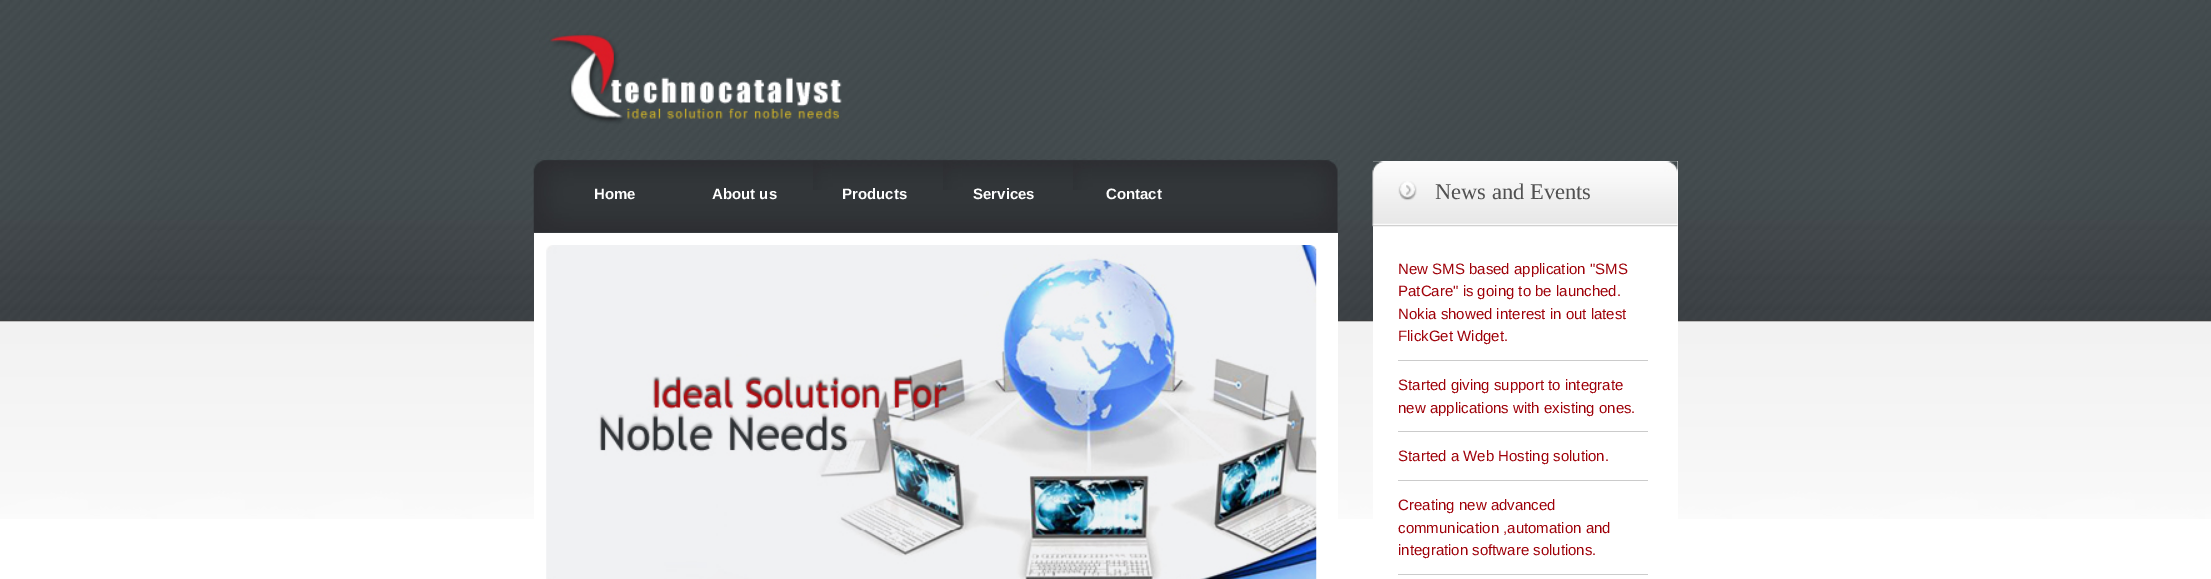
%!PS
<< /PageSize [2211 579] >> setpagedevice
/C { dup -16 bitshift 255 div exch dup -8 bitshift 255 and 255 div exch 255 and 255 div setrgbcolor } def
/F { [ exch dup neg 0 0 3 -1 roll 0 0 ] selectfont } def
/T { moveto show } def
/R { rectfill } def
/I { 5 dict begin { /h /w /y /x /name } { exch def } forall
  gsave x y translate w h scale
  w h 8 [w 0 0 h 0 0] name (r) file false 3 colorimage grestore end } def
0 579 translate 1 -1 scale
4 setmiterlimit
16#FFFFFF C
0 0 2211 579 R
(1.rgb) 0 0 2211 519 I
(2.rgb) 539 0 303 151 I
(3.rgb) 533 159 805 74 I
(4.rgb) 574 159 91 1 I
/LiberationSans-Bold 15 F
(Home) 594 199 T
(About us) 712 199 T
(5.rgb) 813 159 112 31 I
(Products) 842 199 T
(6.rgb) 943 159 112 31 I
(Services) 973 199 T
(7.rgb) 1073 158 112 32 I
(Contact) 1106 199 T
534 233 804 286 R
(8.rgb) 546 245 771 334 I
1373 161 305 358 R
(9.rgb) 1372 161 306 66 I
(10.rgb) 1398 181 19 20 I
/LiberationSerif-Regular 22.5 F
16#515151 C
(News and Events) 1435 199 T
16#CBCBCB C
1398 360 250 1 R
/LiberationSans-Regular 15 F
16#9F0109 C
(New SMS based application "SMS) 1398 274 T
(PatCare" is going to be launched.) 1398 296 T
(Nokia showed interest in out latest) 1398 319 T
(FlickGet Widget.) 1398 341 T
16#CBCBCB C
1398 431 250 1 R
16#9F0109 C
(Started giving support to integrate) 1398 390 T
(new applications with existing ones.) 1398 413 T
16#CBCBCB C
1398 480 250 1 R
16#9F0109 C
(Started a Web Hosting solution.) 1398 461 T
16#CBCBCB C
1398 574 250 1 R
16#9F0109 C
(Creating new advanced) 1398 510 T
(communication ,automation and) 1398 533 T
(integration software solutions.) 1398 555 T
showpage
